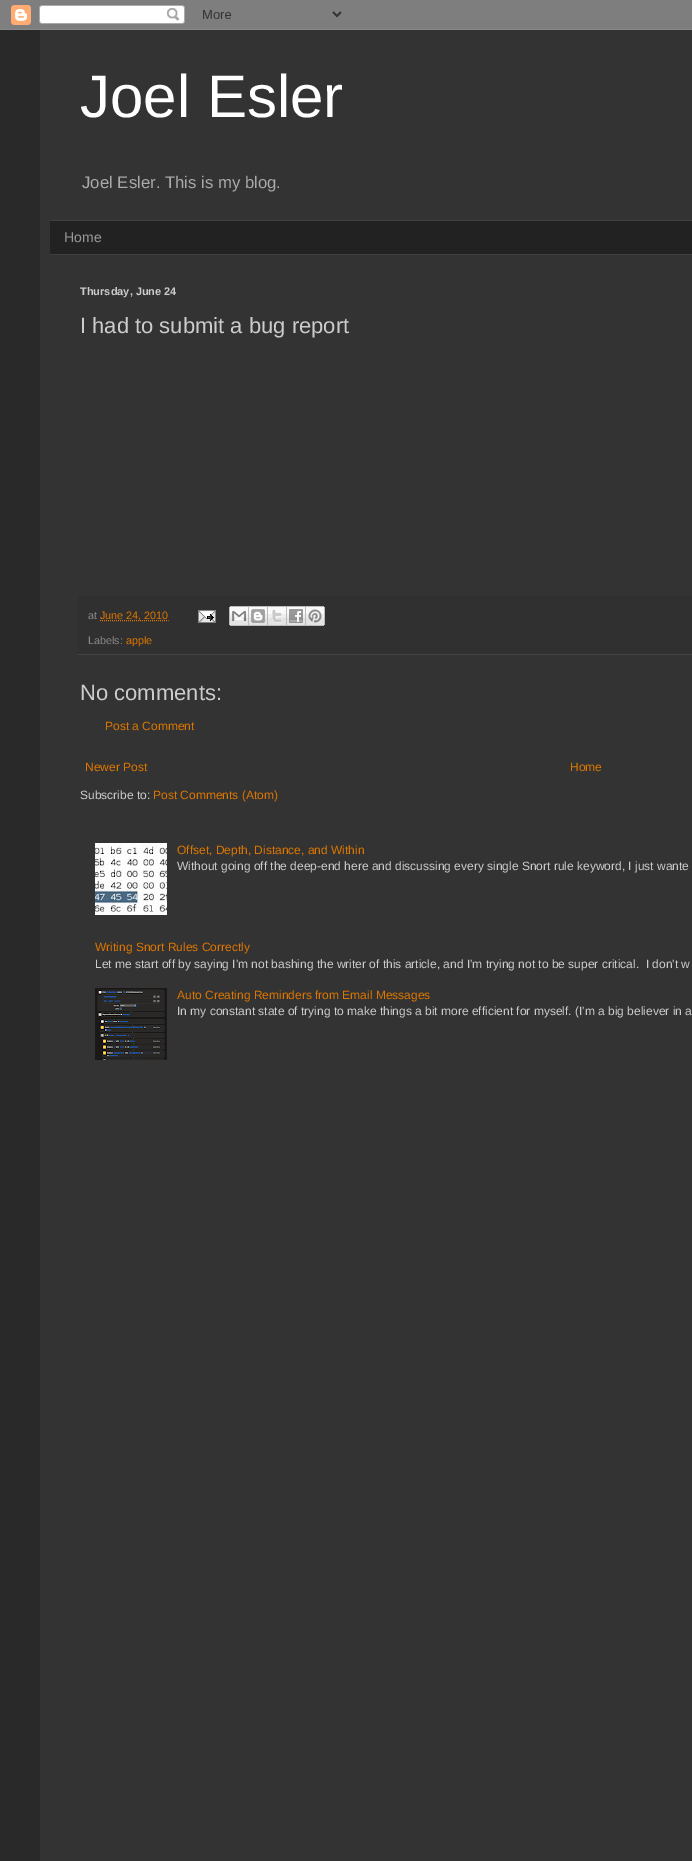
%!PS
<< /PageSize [692 1861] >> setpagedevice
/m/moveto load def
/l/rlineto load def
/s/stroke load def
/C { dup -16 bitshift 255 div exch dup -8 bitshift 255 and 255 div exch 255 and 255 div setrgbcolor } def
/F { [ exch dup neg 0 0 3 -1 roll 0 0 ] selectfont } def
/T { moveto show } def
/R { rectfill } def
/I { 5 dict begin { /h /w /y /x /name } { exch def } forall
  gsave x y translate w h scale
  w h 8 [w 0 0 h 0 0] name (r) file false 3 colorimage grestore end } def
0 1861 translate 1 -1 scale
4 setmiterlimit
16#292929 C
0 0 692 1861 R
(1.rgb) 0 0 692 30 I
16#333333 C
40 30 652 1831 R
/LiberationSans-Regular 60 F
16#FFFFFF C
(Joel Esler) 80 117 T
/LiberationSans-Regular 16.75 F
16#AAAAAA C
(Joel Esler. This is my blog.) 82 188 T
16#222222 C
50 221 642 33 R
16#404040 C
50 220 642 1 R
50 254 642 1 R
/LiberationSans-Regular 14 F
16#999999 C
(Home) 64 242 T
/LiberationSans-Bold 11 F
16#CCCCCC C
(Thursday, June 24) 80 295 T
/LiberationSans-Regular 22 F
(I had to submit a bug report) 80 333 T
16#303030 C
78 596 614 58 R
16#444444 C
78 654 614 1 R
/LiberationSans-Regular 10.75 F
16#888888 C
(at) 88 619 T
16#DD7700 C
[1 1] 0 setdash
100 620.5 m 68.5 0 l s
(June 24, 2010) 100 619 T
(2.rgb) 198 610 18 13 I
(3.rgb) 229 606 20 20 I
(4.rgb) 249 606 19 20 I
(5.rgb) 268 606 19 20 I
(6.rgb) 287 606 19 20 I
(7.rgb) 306 606 19 20 I
16#888888 C
(Labels:) 88 644 T
16#DD7700 C
(apple) 126 644 T
/LiberationSans-Regular 22 F
16#CCCCCC C
(No comments:) 80 700 T
/LiberationSans-Regular 12 F
16#DD7700 C
(Post a Comment) 105 730 T
(Newer Post) 85 771 T
(Home) 570 771 T
16#CCCCCC C
(Subscribe to:) 80 799 T
16#DD7700 C
(Post Comments \(Atom\)) 153 799 T
(8.rgb) 95 843 72 72 I
(Offset, Depth, Distance, and Within) 177 854 T
16#CCCCCC C
(Without going off the deep-end here and discussing every single Snort rule keyword, I just wante) 177 870 T
16#DD7700 C
(Writing Snort Rules Correctly) 95 951 T
16#CCCCCC C
(Let me start off by saying I'm not bashing the writer of this article, and I'm trying not to be super critical.  I don't w) 95 968 T
(9.rgb) 95 988 72 72 I
16#DD7700 C
(Auto Creating Reminders from Email Messages) 177 999 T
16#CCCCCC C
(In my constant state of trying to make things a bit more efficient for myself. \(I'm a big believer in a) 177 1015 T
showpage
